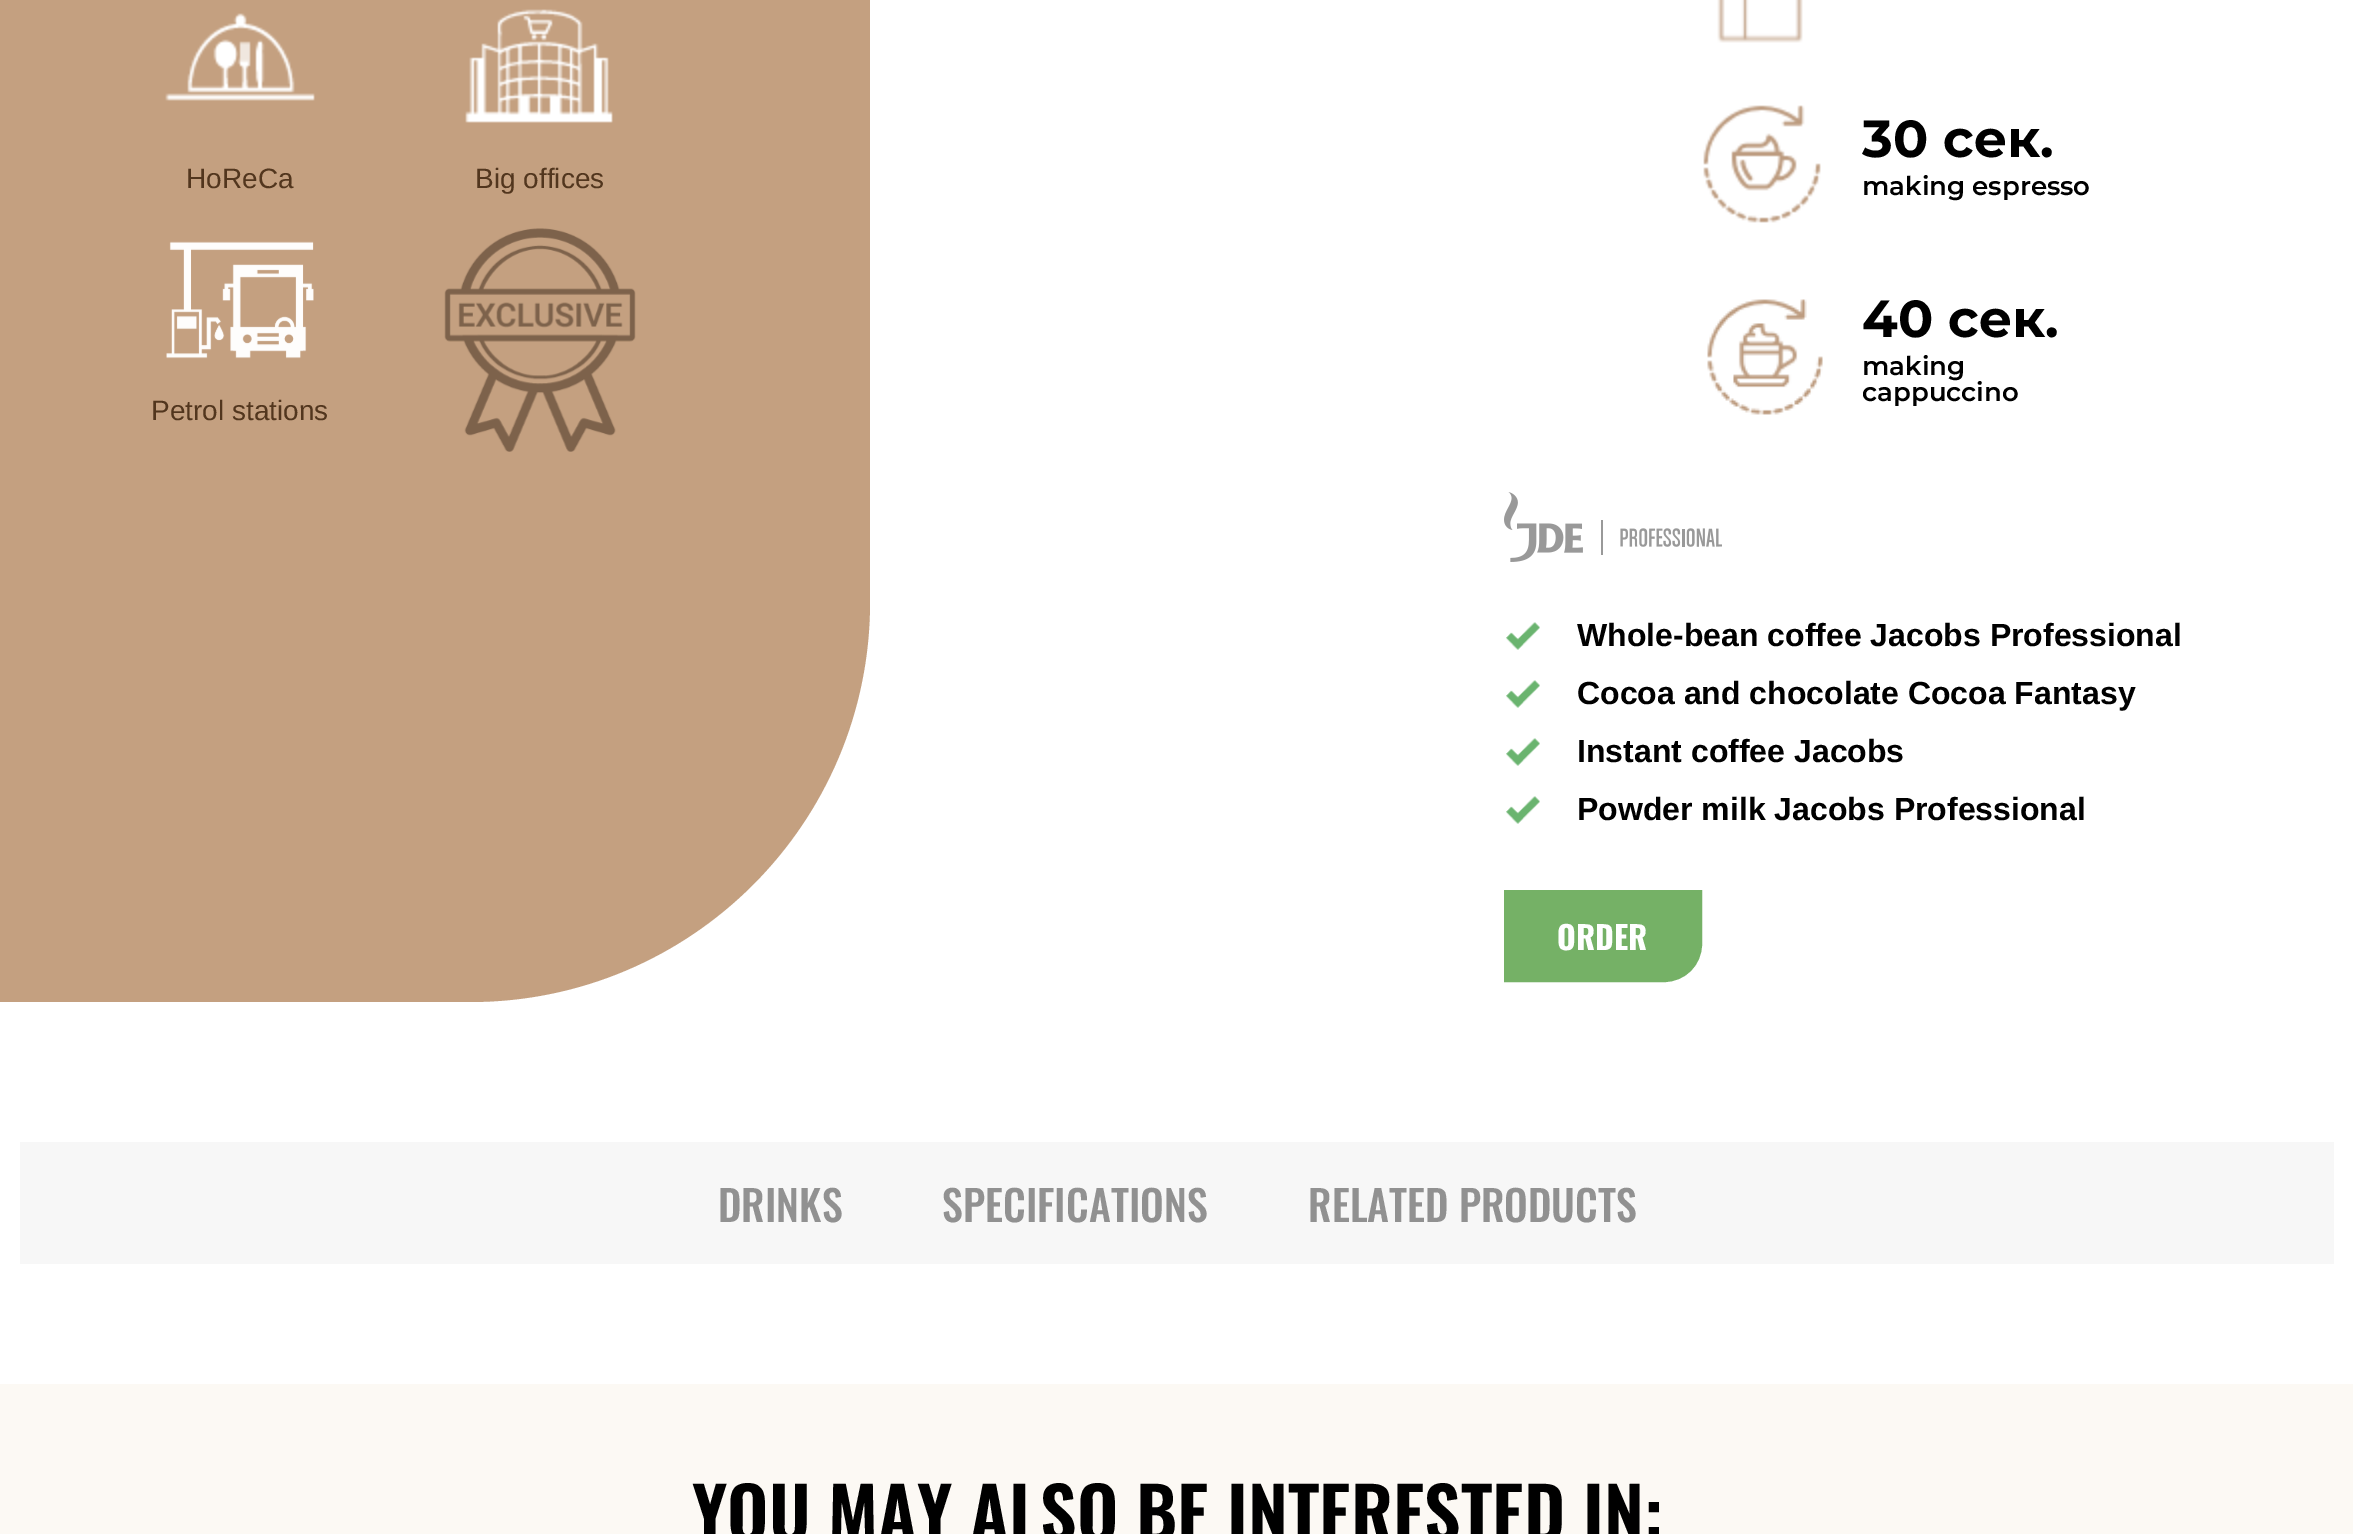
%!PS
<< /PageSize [2353 1534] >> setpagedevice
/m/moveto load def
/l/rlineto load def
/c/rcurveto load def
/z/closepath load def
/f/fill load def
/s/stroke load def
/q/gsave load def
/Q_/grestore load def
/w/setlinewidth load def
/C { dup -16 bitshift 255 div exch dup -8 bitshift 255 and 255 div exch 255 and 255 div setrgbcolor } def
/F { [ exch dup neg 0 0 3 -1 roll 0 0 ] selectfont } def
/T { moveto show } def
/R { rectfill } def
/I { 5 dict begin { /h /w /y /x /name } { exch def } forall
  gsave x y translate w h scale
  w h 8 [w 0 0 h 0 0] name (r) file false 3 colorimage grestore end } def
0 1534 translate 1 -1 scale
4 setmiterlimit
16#FFFFFF C
0 0 2353 1534 R
16#C4A080 C
0 -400 m 870 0 l 0 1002 l 0 221 -179 400 -400 400 c -470 0 l z f
(1.rgb) 165 13 150 88 I
/LiberationSans-Regular 28 F
16#52361E C
(HoReCa) 186 188 T
(2.rgb) 465 9 148 114 I
(Big offices) 475 188 T
(3.rgb) 166 241 148 118 I
(Petrol stations) 151 420 T
(4.rgb) 444 228 192 224 I
(5.rgb) 1717 0 86 43 I
(6.rgb) 1703 105 118 118 I
/Montserrat-Bold 52 F
16#000000 C
(30 сек.) 1862 157 T
/Montserrat-SemiBold 26 F
(making espresso) 1862 195 T
(7.rgb) 1707 299 116 116 I
/Montserrat-Bold 52 F
(40 сек.) 1862 337 T
/Montserrat-SemiBold 26 F
(making) 1862 375 T
(cappuccino) 1862 401 T
(8.rgb) 1504 492 218 70 I
(9.rgb) 1506 622 34 28 I
/LiberationSans-Bold 32 F
(Whole-bean coffee Jacobs Professional) 1577 646 T
(9.rgb) 1506 680 34 28 I
(Cocoa and chocolate Cocoa Fantasy) 1577 704 T
(9.rgb) 1506 738 34 28 I
(Instant coffee Jacobs) 1577 762 T
(9.rgb) 1506 796 34 28 I
(Powder milk Jacobs Professional) 1577 820 T
16#75B166 C
1507 893 m 192 0 l 0 51 l 0 19.5 -15.5 35 -35 35 c -157 0 l z q f Q_
6 w
s
/Oswald-Bold 32 F
16#FFFFFF C
(ORDER) 1557 950 T
16#F7F7F7 C
20 1142 2314 122 R
/Oswald-Medium 42 F
16#919191 C
(DRINKS) 718 1222 T
(SPECIFICATIONS) 942 1222 T
(RELATED PRODUCTS) 1308 1222 T
16#FCF9F4 C
0 1384 2353 150 R
/Oswald-SemiBold 72 F
16#000000 C
(YOU MAY ALSO BE INTERESTED IN:) 692 1542 T
showpage
